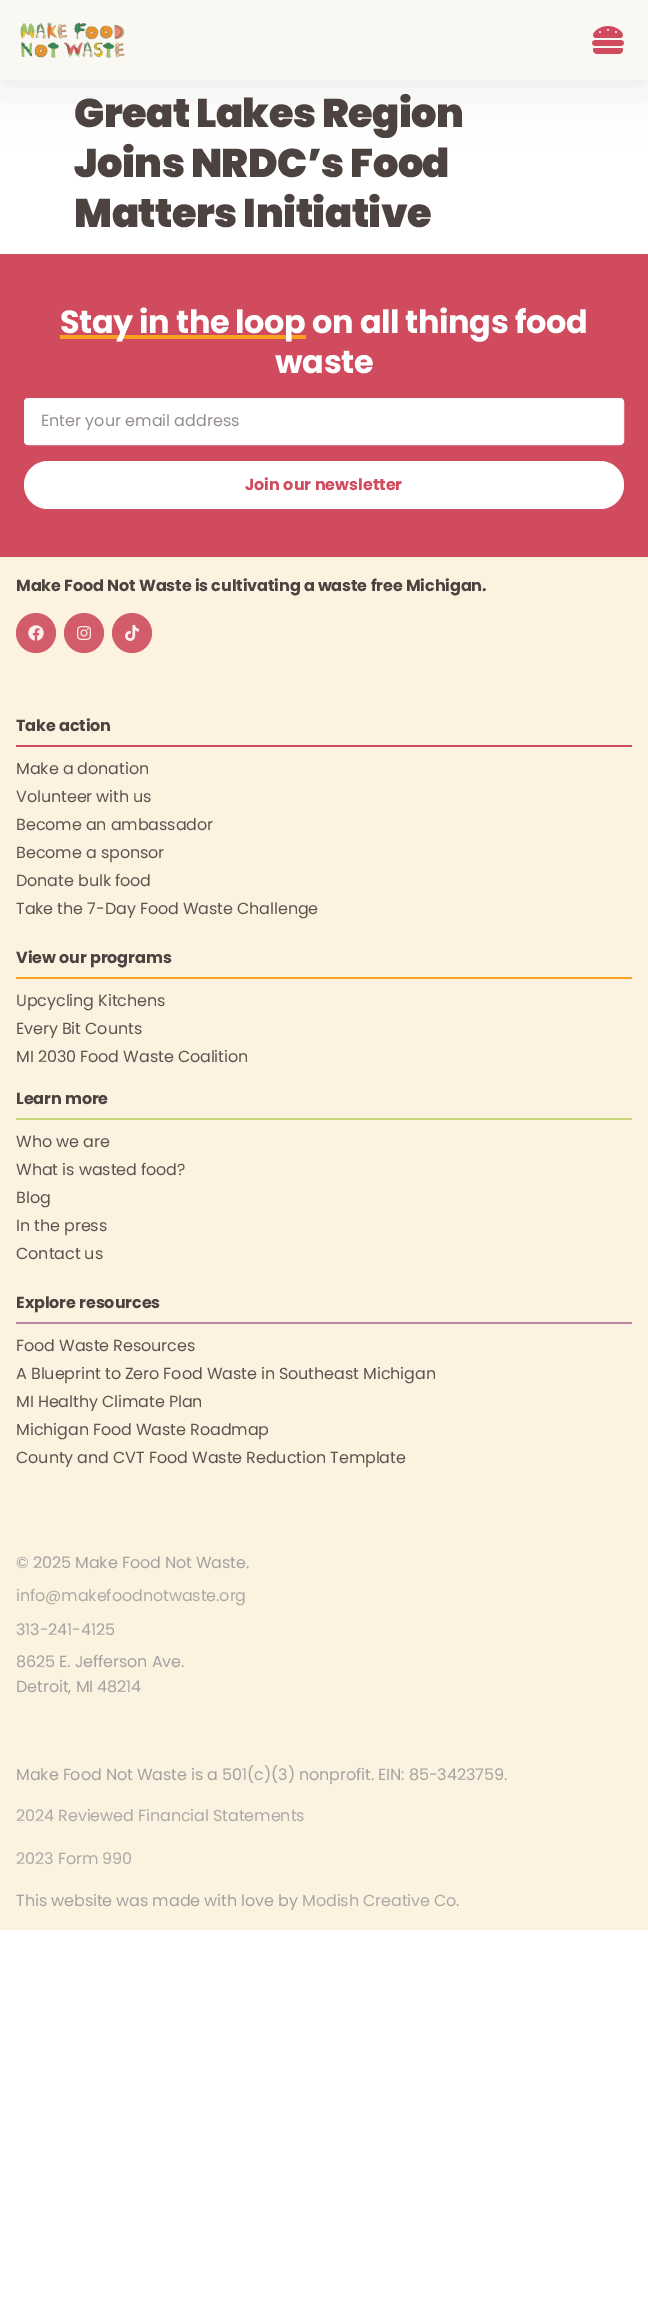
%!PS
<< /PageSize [648 2324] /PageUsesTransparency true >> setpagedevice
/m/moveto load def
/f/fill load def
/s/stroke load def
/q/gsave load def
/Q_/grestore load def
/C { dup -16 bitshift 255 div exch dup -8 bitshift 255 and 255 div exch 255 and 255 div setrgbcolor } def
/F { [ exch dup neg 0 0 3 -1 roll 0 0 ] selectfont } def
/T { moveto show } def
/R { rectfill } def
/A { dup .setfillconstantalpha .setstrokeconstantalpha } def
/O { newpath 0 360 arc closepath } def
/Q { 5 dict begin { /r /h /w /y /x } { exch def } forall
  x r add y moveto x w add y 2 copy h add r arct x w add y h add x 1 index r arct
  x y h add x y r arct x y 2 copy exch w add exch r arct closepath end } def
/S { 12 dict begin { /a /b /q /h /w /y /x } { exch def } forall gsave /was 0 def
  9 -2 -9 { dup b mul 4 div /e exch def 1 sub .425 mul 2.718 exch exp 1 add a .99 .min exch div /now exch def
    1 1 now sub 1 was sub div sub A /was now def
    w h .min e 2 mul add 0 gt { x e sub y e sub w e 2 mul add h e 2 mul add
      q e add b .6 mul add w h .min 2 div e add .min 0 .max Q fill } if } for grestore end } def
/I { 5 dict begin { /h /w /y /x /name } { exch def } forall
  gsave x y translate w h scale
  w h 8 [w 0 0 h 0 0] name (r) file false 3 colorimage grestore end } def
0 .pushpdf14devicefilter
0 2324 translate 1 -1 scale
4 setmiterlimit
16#FFFFFF C
0 0 648 2324 R
16#000000 C
0 0 648 80 0 32 .1 S
16#FAF8F3 C
0 0 648 80 R
(1.rgb) 20 22 105 36 I
(2.rgb) 592 26 32 28 I
/Poppins-Black 40 F
16#4C4341 C
74 127 m -.5 0 (Great Lakes Region) ashow
74 177 m -.5 0 (Joins NRDC’s Food) ashow
74 227 m -.5 0 (Matters Initiative) ashow
16#CF4B5D C
0 254 648 303 R
16#FAA21F C
60 335 246 4 R
/Poppins-Bold 32 F
16#FFFFFF C
60 333 m -.4 0 (Stay in the loop on all things food) ashow
275 373 m -.4 0 (waste) ashow
24.5 398.5 599 46 3.5 Q q f Q_
16#FAF8F3 C
s
/Poppins-Regular 16 F
16#948E8D C
(Enter your email address) 41 426 T
16#FFFFFF C
24 461 600 48 24 Q f
/Poppins-Bold 16 F
16#CF4B5D C
(Join our newsletter) 245 490 T
16#FBF2DF C
0 557 648 1373 R
16#4C4341 C
16 591 m -.1 0 (Make Food Not Waste is cultivating a waste free Michigan.) ashow
16#D35C6A C
36 633 20 O f
(3.rgb) 28 625 16 16 I
84 633 20 O f
(4.rgb) 77 626 14 14 I
132 633 20 O f
(5.rgb) 125 625 14 16 I
16#4C4341 C
16 731 m -.1 0 (Take action) ashow
16#CF4B5D C
16 745 616 2 R
/Poppins-Regular 16 F
16#5E5551 C
16 774 m -.1 0 (Make a donation) ashow
16 802 m -.1 0 (Volunteer with us) ashow
16 830 m -.1 0 (Become an ambassador) ashow
16 858 m -.1 0 (Become a sponsor) ashow
16 886 m -.1 0 (Donate bulk food) ashow
16 914 m -.1 0 (Take the 7-Day Food Waste Challenge) ashow
/Poppins-Bold 16 F
16#4C4341 C
16 963 m -.1 0 (View our programs) ashow
16#FAA21F C
16 977 616 2 R
/Poppins-Regular 16 F
16#5E5551 C
16 1006 m -.1 0 (Upcycling Kitchens) ashow
16 1034 m -.1 0 (Every Bit Counts) ashow
16 1062 m -.1 0 (MI 2030 Food Waste Coalition) ashow
/Poppins-Bold 16 F
16#4C4341 C
16 1104 m -.1 0 (Learn more) ashow
16#CBD77C C
16 1118 616 2 R
/Poppins-Regular 16 F
16#5E5551 C
16 1147 m -.1 0 (Who we are) ashow
16 1175 m -.1 0 (What is wasted food?) ashow
16 1203 m -.1 0 (Blog) ashow
16 1231 m -.1 0 (In the press) ashow
16 1259 m -.1 0 (Contact us) ashow
/Poppins-Bold 16 F
16#4C4341 C
16 1308 m -.1 0 (Explore resources) ashow
16#BA87A0 C
16 1322 616 2 R
/Poppins-Regular 16 F
16#5E5551 C
16 1351 m -.1 0 (Food Waste Resources) ashow
16 1379 m -.1 0 (A Blueprint to Zero Food Waste in Southeast Michigan) ashow
16 1407 m -.1 0 (MI Healthy Climate Plan) ashow
16 1435 m -.1 0 (Michigan Food Waste Roadmap) ashow
16 1463 m -.1 0 (County and CVT Food Waste Reduction Template) ashow
16#A5A1A0 C
16 1568 m -.1 0 (© 2025 Make Food Not Waste.) ashow
16#AEA9A6 C
16 1601 m -.1 0 (info@makefoodnotwaste.org) ashow
16#A5A1A0 C
16 1635 m -.1 0 (313-241-4125) ashow
16 1667 m -.1 0 (8625 E. Jefferson Ave.) ashow
16 1692 m -.1 0 (Detroit, MI 48214) ashow
16 1780 m -.1 0 (Make Food Not Waste is a 501\(c\)\(3\) nonprofit. EIN: 85-3423759.) ashow
16#AEA9A6 C
16 1821 m -.1 0 (2024 Reviewed Financial Statements) ashow
16 1864 m -.1 0 (2023 Form 990) ashow
16#A5A1A0 C
16 1906 m -.1 0 (This website was made with love by) ashow
16#AEA9A6 C
302 1906 m -.1 0 (Modish Creative Co) ashow
16#A5A1A0 C
456 1906 m -.1 0 (.) ashow
.poppdf14devicefilter showpage
